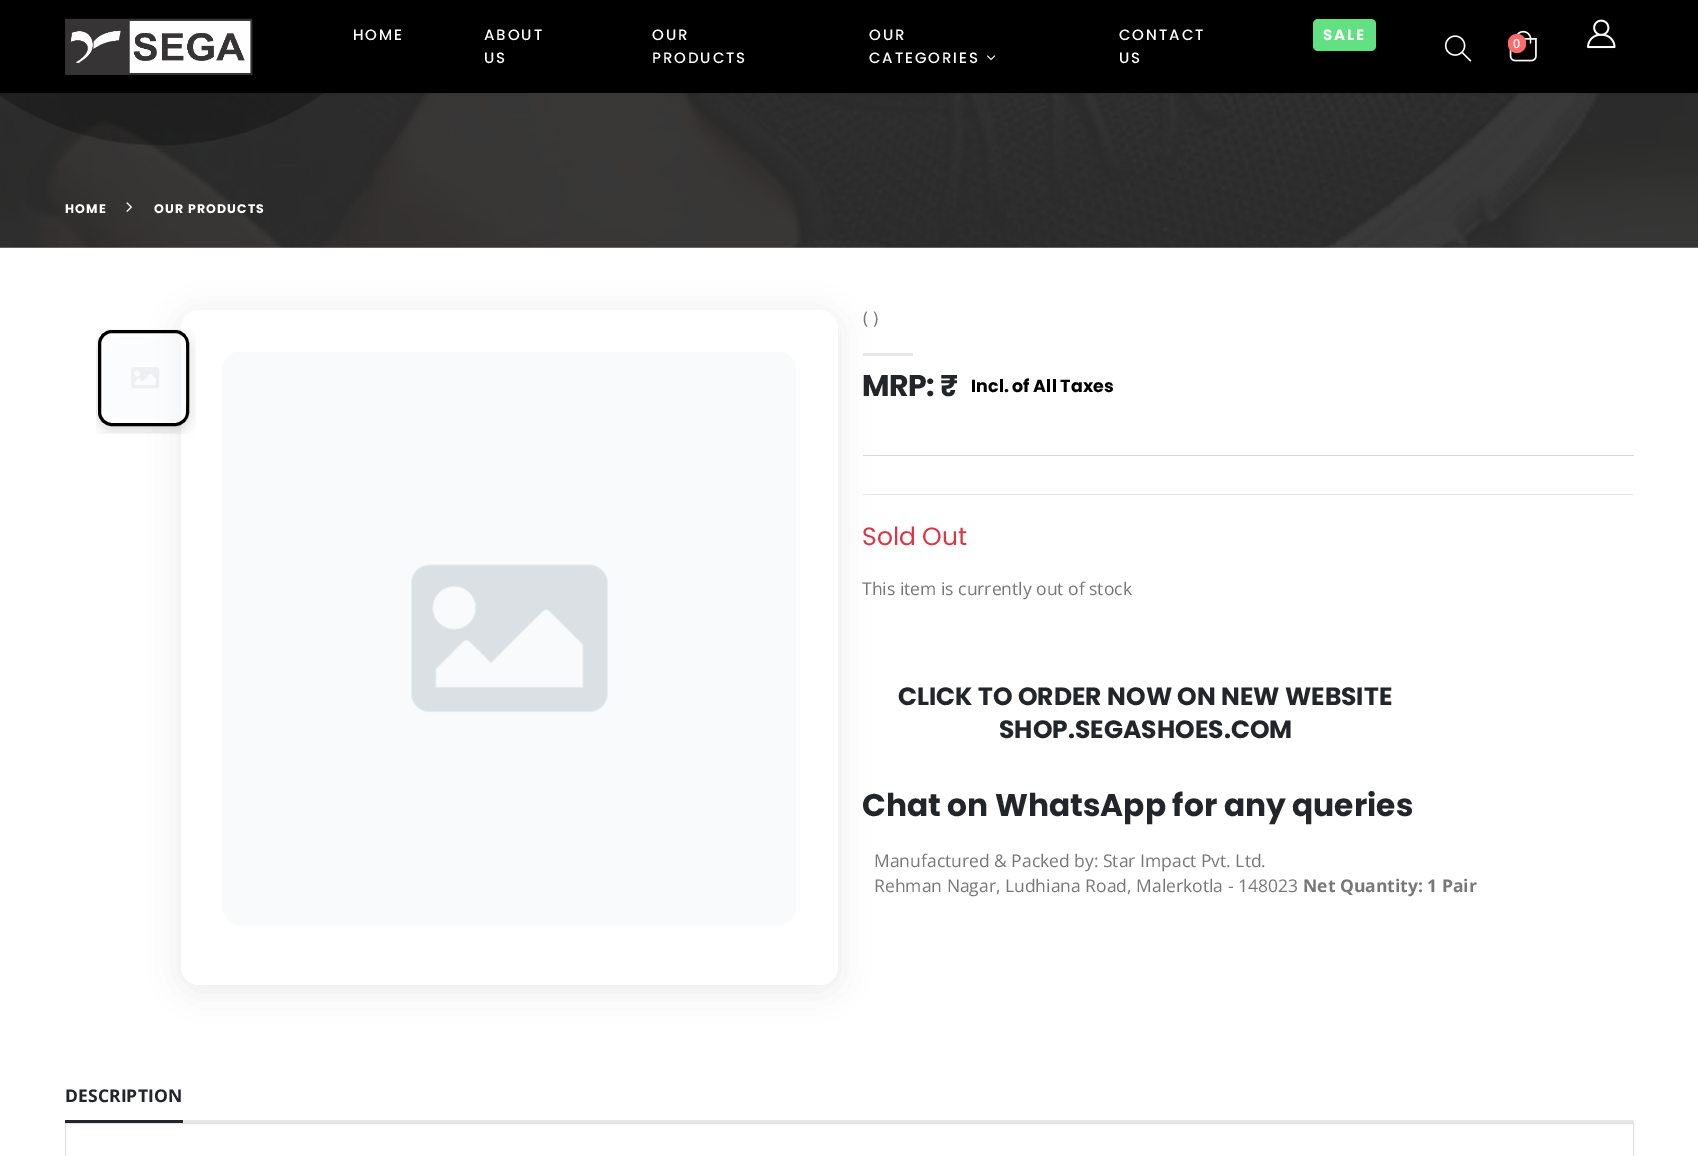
%!PS
<< /PageSize [1698 1156] /PageUsesTransparency true >> setpagedevice
/m/moveto load def
/l/rlineto load def
/c/rcurveto load def
/z/closepath load def
/f/fill load def
/s/stroke load def
/q/gsave load def
/Q_/grestore load def
/w/setlinewidth load def
/C { dup -16 bitshift 255 div exch dup -8 bitshift 255 and 255 div exch 255 and 255 div setrgbcolor } def
/F { [ exch dup neg 0 0 3 -1 roll 0 0 ] selectfont } def
/T { moveto show } def
/R { rectfill } def
/A { dup .setfillconstantalpha .setstrokeconstantalpha } def
/Q { 5 dict begin { /r /h /w /y /x } { exch def } forall
  x r add y moveto x w add y 2 copy h add r arct x w add y h add x 1 index r arct
  x y h add x y r arct x y 2 copy exch w add exch r arct closepath end } def
/S { 12 dict begin { /a /b /q /h /w /y /x } { exch def } forall gsave /was 0 def
  9 -2 -9 { dup b mul 4 div /e exch def 1 sub .425 mul 2.718 exch exp 1 add a .99 .min exch div /now exch def
    1 1 now sub 1 was sub div sub A /was now def
    w h .min e 2 mul add 0 gt { x e sub y e sub w e 2 mul add h e 2 mul add
      q e add b .6 mul add w h .min 2 div e add .min 0 .max Q fill } if } for grestore end } def
/I { 5 dict begin { /h /w /y /x /name } { exch def } forall
  gsave x y translate w h scale
  w h 8 [w 0 0 h 0 0] name (r) file false 3 colorimage grestore end } def
0 .pushpdf14devicefilter
0 1156 translate 1 -1 scale
4 setmiterlimit
16#FFFFFF C
0 0 1698 1156 R
(6.rgb) 0 93 1698 155 I
16#000000 C
0 1 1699 93 0 3 .08 S
0 0 1698 93 R
(1.rgb) 65 18 188 57 I
/Poppins-Medium 15 F
16#FFFFFF C
353 40 m 1.9 0 (HOME) ashow
484 40 m 1.9 0 (ABOUT) ashow
484 63 m 1.9 0 (US) ashow
652 40 m 1.9 0 (OUR) ashow
652 63 m 1.9 0 (PRODUCTS) ashow
869 40 m 1.9 0 (OUR) ashow
869 63 m 1.9 0 (CATEGORIES) ashow
(2.rgb) 987 55 9 6 I
1119 40 m 1.9 0 (CONTACT) ashow
1119 63 m 1.9 0 (US) ashow
16#62E183 C
1313 19 63 32 5 Q f
/Poppins-Bold 15 F
16#FFFFFF C
1323 40 m 1.9 0 (SALE) ashow
(3.rgb) 1444 35 28 27 I
(4.rgb) 1509 30 28 32 I
16#FF6B6B C
1508 34 18 19 9 Q f
/OpenSans-SemiBold 12.5 F
16#FFFFFF C
(0) 1513 48 T
(5.rgb) 1587 19 29 30 I
/Poppins-Bold 12.5 F
65 213 m 1.1 0 (HOME) ashow
(7.rgb) 126 202 6 10 I
154 213 m 1.1 0 (OUR PRODUCTS) ashow
16#000000 C
181 315 657 675 18 15.5 .08 S
16#FFFFFF C
181 310 657 675 18 Q f
(8.rgb) 222 352 574 574 I
q
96 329 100 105 rectclip
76 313 m 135 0 l 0 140 l -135 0 l z 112 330 m 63 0 l 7.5 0 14 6.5 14 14 c 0 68 l 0 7.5 -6.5 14 -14 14 c -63 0 l -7.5 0 -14 -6.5 -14 -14 c 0 -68 l 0 -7.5 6.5 -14 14 -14 c z eoclip newpath
16#000000 C
98 335 91 96 14 7 .15 S
Q_
16#000000 C
3 w
99.5 331.5 88 93 12.5 Q s
(9.rgb) 104 337 83 82 I
/OpenSans-Regular 17.5 F
16#777777 C
(\( \)) 863 324 T
16#E7E7E7 C
863 353 50 3 R
/Poppins-Bold 30 F
16#222529 C
862 396 m -.5 0 (MRP: ₹) ashow
/Poppins-Bold 17.5 F
16#000000 C
(Incl. of All Taxes) 971 392 T
16#D9D8D8 C
863 455 771 1 R
16#E7E7E7 C
863 494 771 1 R
/Poppins-Regular 25 F
16#DC3545 C
(Sold Out) 862 545 T
/OpenSans-Regular 17.5 F
16#777777 C
(This item is currently out of stock) 862 595 T
/Poppins-Bold 25 F
16#222529 C
(CLICK TO ORDER NOW ON NEW WEBSITE) 898 705 T
(SHOP.SEGASHOES.COM) 999 738 T
/Poppins-Bold 31.25 F
(Chat on WhatsApp for any queries) 862 816 T
/OpenSans-Regular 17.5 F
16#777777 C
(Manufactured & Packed by: Star Impact Pvt. Ltd.) 874 867 T
(Rehman Nagar, Ludhiana Road, Malerkotla - 148023) 874 892 T
/OpenSans-Bold 17.5 F
(Net Quantity: 1 Pair) 1303 892 T
16#E7E7E7 C
183 1120 1451 3 R
16#222529 C
65 1120 118 3 R
65 1102 m .1 0 (DESCRIPTION) ashow
16#DEE2E6 C
1 w
65.5 1123.5 1568 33 rectstroke
.poppdf14devicefilter showpage
